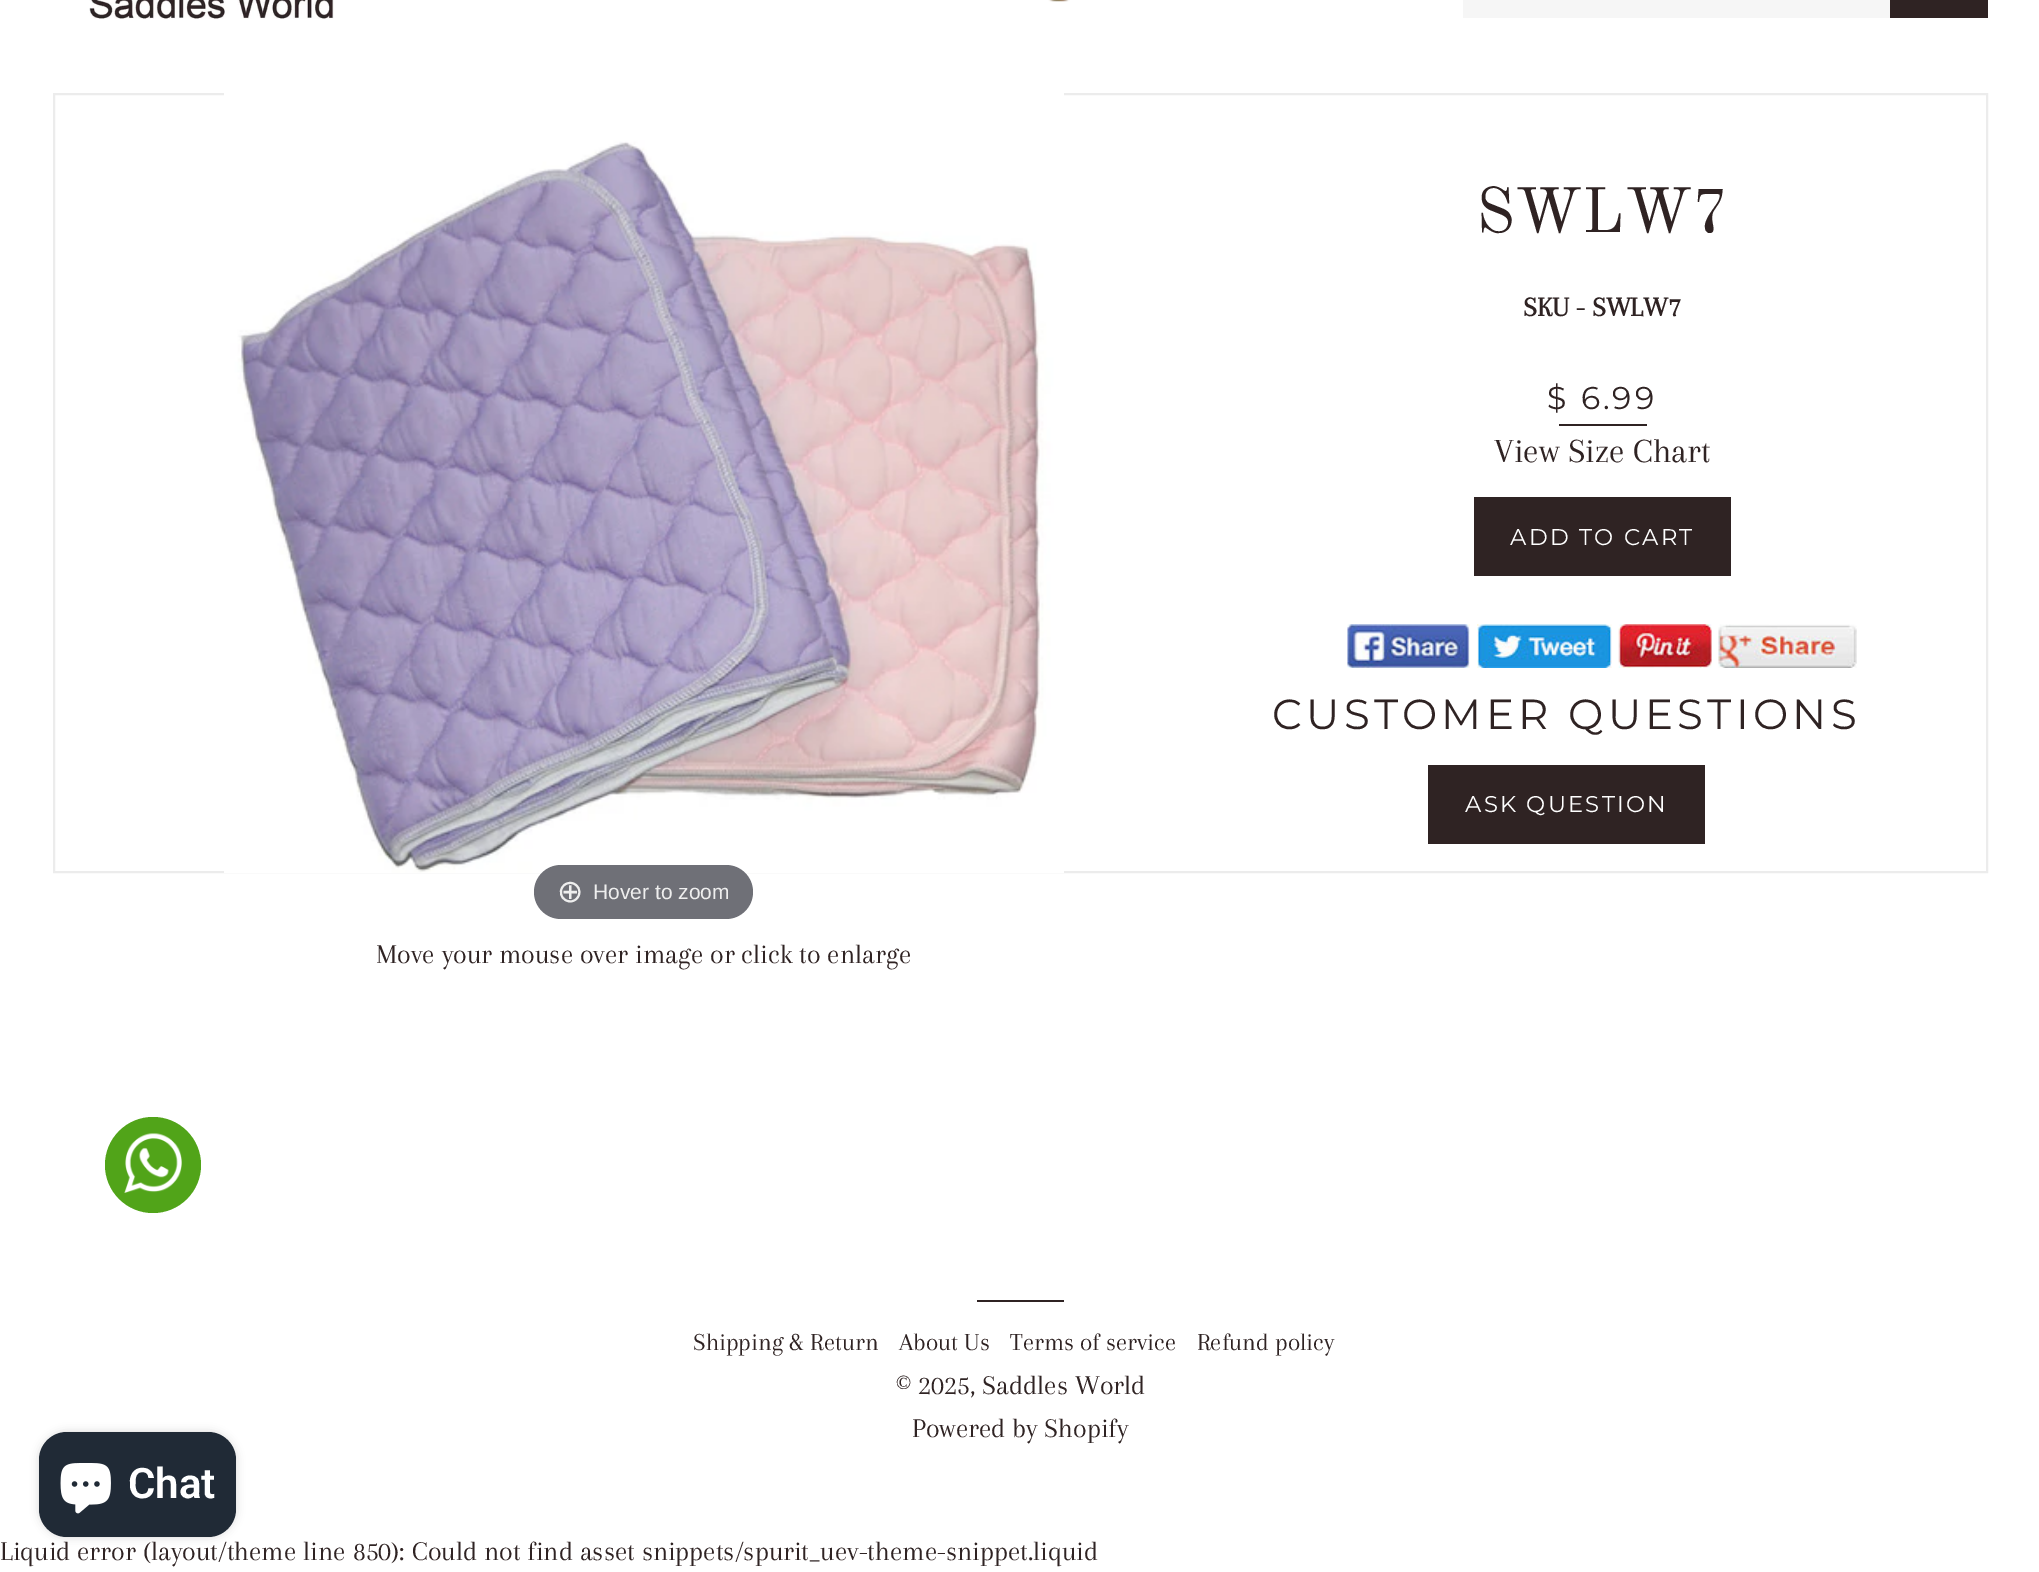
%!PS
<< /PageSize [2039 1572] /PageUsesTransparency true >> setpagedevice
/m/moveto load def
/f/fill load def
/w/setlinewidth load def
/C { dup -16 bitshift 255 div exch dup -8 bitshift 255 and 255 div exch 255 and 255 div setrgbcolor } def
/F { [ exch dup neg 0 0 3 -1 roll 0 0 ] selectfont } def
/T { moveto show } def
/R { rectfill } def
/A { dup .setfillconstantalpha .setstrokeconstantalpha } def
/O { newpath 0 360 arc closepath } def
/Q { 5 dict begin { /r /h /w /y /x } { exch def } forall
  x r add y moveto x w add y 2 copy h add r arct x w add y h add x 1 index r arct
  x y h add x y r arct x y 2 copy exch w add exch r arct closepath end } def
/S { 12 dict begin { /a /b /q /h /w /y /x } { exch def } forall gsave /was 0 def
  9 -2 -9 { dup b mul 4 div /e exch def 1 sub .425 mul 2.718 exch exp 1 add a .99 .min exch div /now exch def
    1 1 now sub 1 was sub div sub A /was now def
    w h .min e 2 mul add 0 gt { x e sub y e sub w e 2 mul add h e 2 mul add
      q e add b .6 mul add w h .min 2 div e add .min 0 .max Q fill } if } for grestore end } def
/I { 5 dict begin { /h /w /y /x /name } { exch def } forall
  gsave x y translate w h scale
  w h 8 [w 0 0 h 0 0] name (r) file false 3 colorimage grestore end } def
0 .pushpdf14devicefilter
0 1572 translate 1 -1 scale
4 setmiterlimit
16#FFFFFF C
0 0 2039 1572 R
(1.rgb) 89 0 245 19 I
(2.rgb) 1048 0 22 2 I
16#F6F6F6 C
1463 0 427 18 R
16#2F2323 C
1890 0 98 18 R
16#ECECEC C
2 w
54 94 1933 778 rectstroke
/OldStandardTT-Regular 63 F
16#2F2323 C
(SWLW7) 1476 232 T
/Arapey-Bold 28 F
(SKU - SWLW7) 1523 316 T
/Montserrat-Thin 31.5 F
1547 409 m 3 0 ($ 6.99) ashow
1559 424 88 2 R
/Arapey-Regular 35 F
(View Size Chart) 1494 462 T
1474 497 257 79 R
/Montserrat-Thin 22.75 F
16#FFFFFF C
1510 545 m 2.25 0 (ADD TO CART) ashow
(3.rgb) 1347 624 123 44 I
(4.rgb) 1477 624 135 44 I
(5.rgb) 1618 624 94 44 I
(6.rgb) 1718 624 139 44 I
/Montserrat-Thin 42 F
16#2F2323 C
1272 729 m 4.25 0 (CUSTOMER QUESTIONS) ashow
1428 765 277 79 R
/Montserrat-Thin 22.75 F
16#FFFFFF C
1465 812 m 2.25 0 (ASK QUESTION) ashow
(7.rgb) 224 93 840 780 I
16#6F7077 C
534 865 219 54 27 Q f
/DejaVuSans-Regular 31.5 F
16#EEEEEE C
(⊕) 557 902 T
/LiberationSans-Regular 21 F
(Hover to zoom) 593 899 T
/Arapey-Regular 28 F
16#2F2323 C
(Move your mouse over image or click to enlarge) 376 963 T
16#51A419 C
153 1165 48 O f
(8.rgb) 124 1133 58 60 I
16#2F2323 C
977 1300 87 2 R
/Arapey-Regular 25.25 F
(Shipping & Return) 693 1350 T
(About Us) 899 1350 T
(Terms of service) 1010 1350 T
(Refund policy) 1197 1350 T
/Arapey-Regular 28 F
(© 2025, Saddles World) 896 1394 T
(Powered by Shopify) 912 1437 T
16#000000 C
39 1432 197 105 28 4.5 .15 S
16#202A36 C
39 1432 197 105 28 Q f
(9.rgb) 60 1463 51 51 I
/Roboto-SemiBold 42 F
16#FFFFFF C
(Chat) 128 1498 T
/Arapey-Regular 28 F
16#2F2323 C
(Liquid error \(layout/theme line 850\): Could not find asset snippets/spurit_uev-theme-snippet.liquid) 0 1560 T
.poppdf14devicefilter showpage
